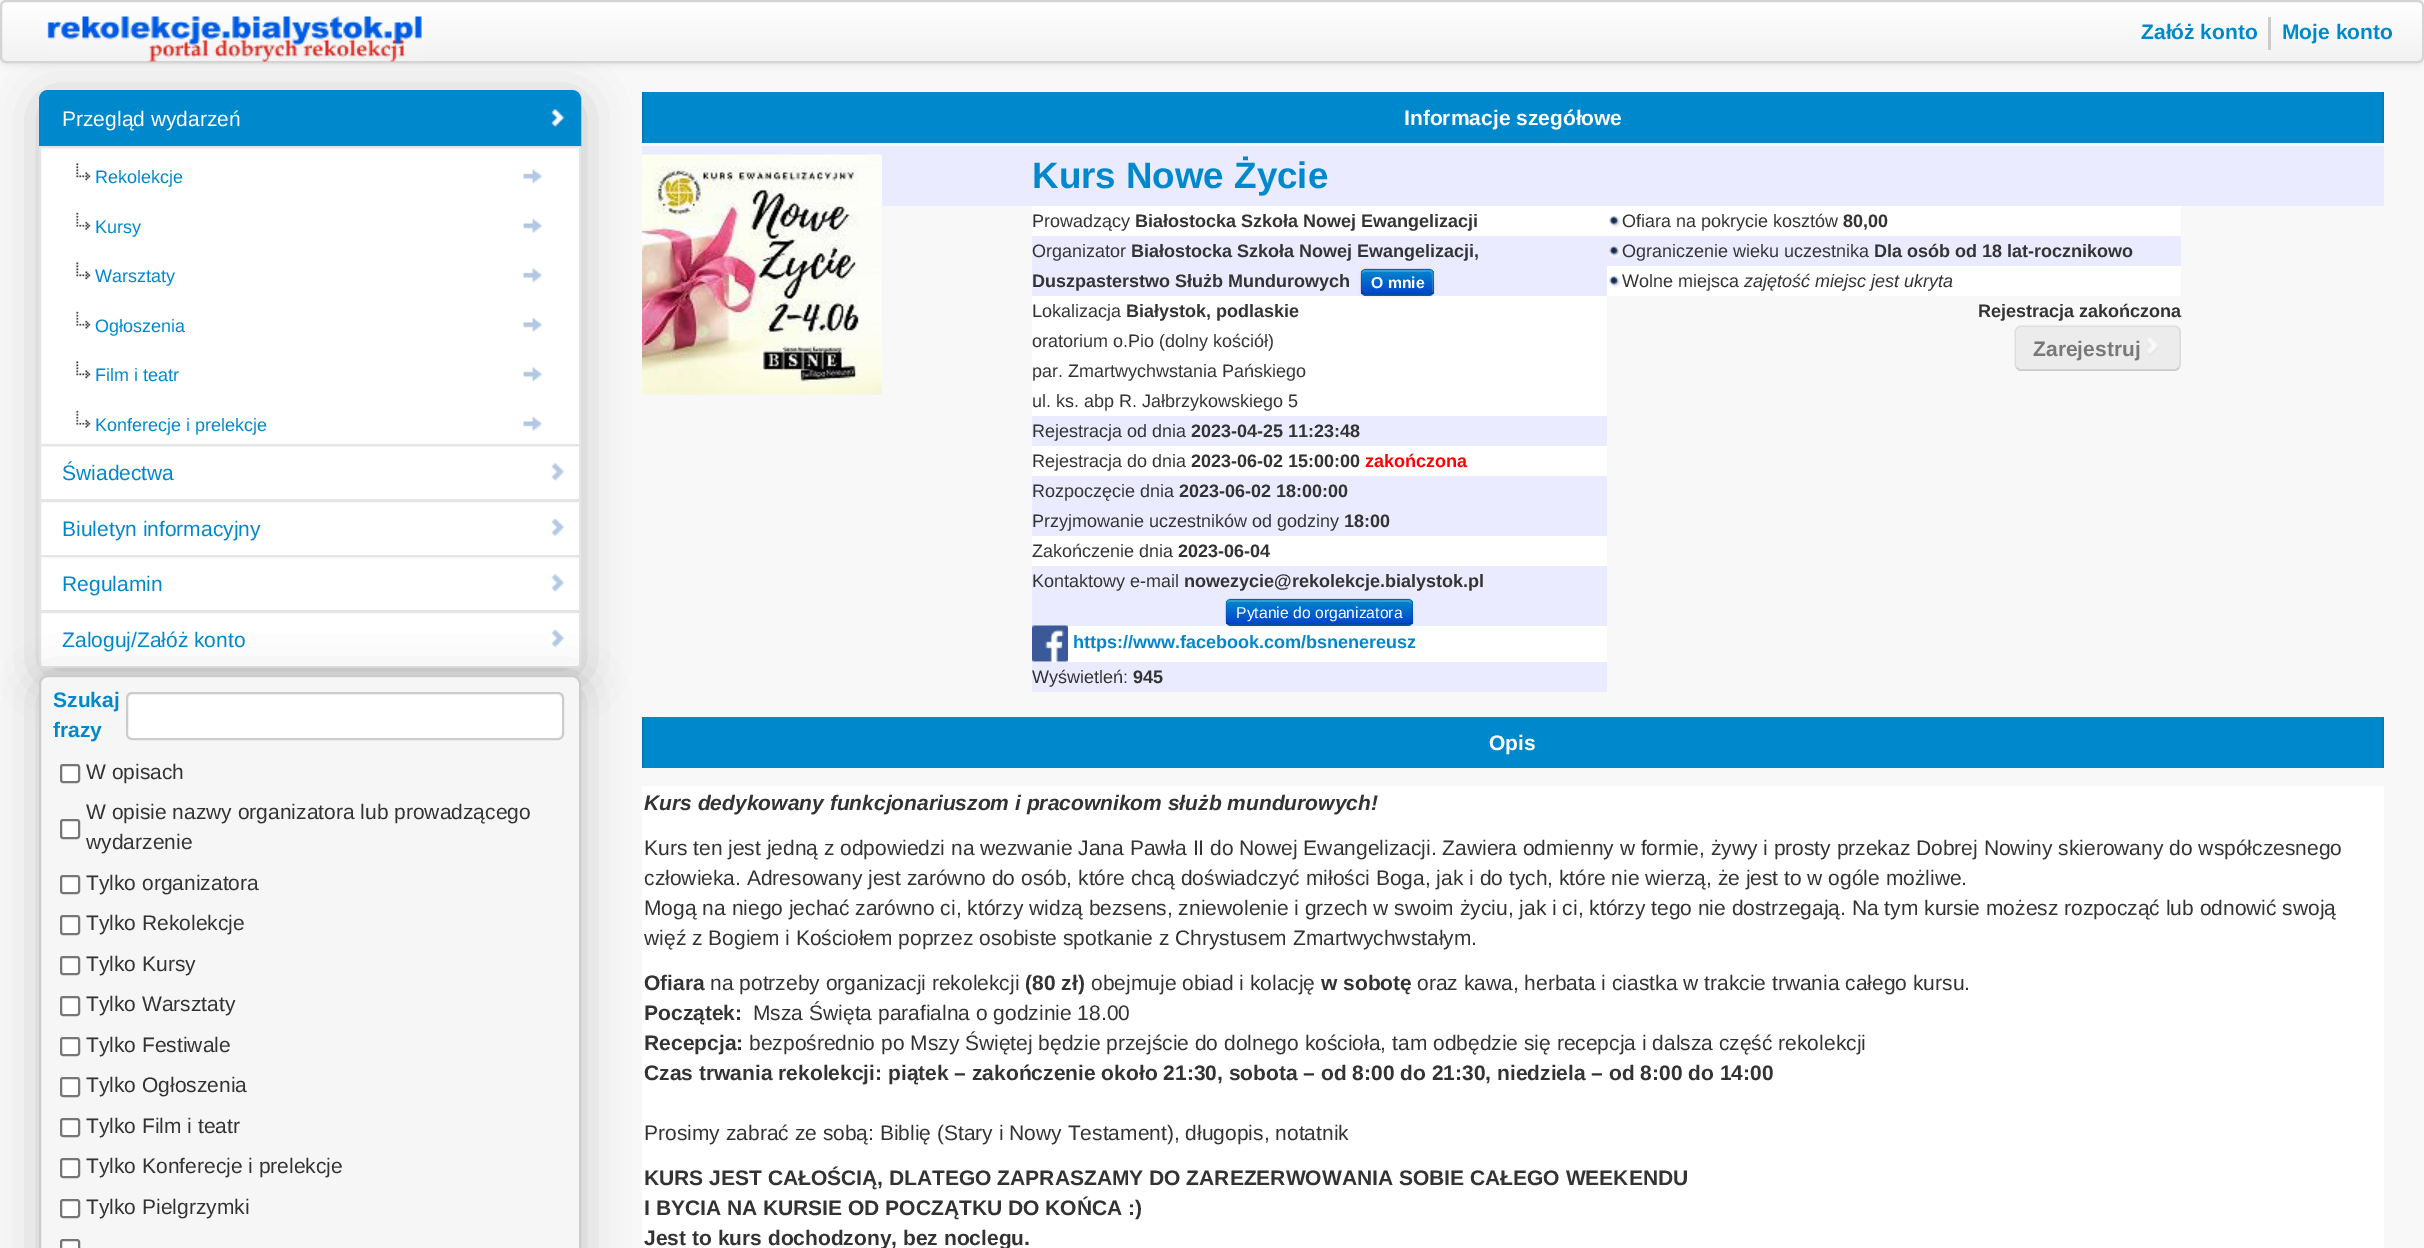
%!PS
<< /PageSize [2424 1248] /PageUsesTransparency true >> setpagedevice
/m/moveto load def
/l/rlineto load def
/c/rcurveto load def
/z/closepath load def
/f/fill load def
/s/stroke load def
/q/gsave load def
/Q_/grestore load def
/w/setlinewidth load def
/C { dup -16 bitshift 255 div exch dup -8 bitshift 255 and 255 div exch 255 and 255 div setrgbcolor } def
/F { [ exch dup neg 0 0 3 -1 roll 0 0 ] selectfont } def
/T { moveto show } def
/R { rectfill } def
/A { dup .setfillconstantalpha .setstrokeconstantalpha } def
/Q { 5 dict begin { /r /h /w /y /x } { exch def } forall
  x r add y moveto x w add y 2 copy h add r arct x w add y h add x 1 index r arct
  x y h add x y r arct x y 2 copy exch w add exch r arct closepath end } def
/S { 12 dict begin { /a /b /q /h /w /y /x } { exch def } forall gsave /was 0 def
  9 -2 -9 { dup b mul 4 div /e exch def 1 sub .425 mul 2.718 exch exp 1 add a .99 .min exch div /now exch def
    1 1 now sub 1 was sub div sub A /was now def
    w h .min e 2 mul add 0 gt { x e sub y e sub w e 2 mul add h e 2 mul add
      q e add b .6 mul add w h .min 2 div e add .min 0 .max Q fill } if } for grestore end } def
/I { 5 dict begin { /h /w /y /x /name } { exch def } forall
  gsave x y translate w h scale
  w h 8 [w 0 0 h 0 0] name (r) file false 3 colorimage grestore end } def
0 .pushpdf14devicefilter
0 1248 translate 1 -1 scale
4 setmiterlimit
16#F8F8F8 C
0 0 2424 1248 R
16#000000 C
0 2 2424 63 6 3 .07 S
41 99 541 578 9 22.5 .2 S
q
0 0 2424 63 6 Q clip newpath
q 0 2 m 2424 0 l 0 60 l -2424 0 l z clip newpath
<< /ShadingType 2 /ColorSpace /DeviceRGB /Coords [1212 1.5 1212 62] /Extend [true true] /Function << /FunctionType 2 /Domain [0 1] /C0 [1 1 1] /C1 [.949 .949 .949] /N 1 >> >> shfill Q_
Q_
16#D4D4D4 C
2 w
1 1 2422 61 5 Q s
(1.rgb) 47 16 375 46 I
/LiberationSans-Bold 21 F
16#0088CC C
(Załóż konto) 2141 39 T
16#CCCCCC C
2268 17 3 33 R
16#0088CC C
(Moje konto) 2282 39 T
16#FFFFFF C
39 90 542 578 9 Q f
16#0088CC C
48 91 m 524 0 l 4.5 0 8 3.5 8 8 c 0 47 l -540 0 l 0 -47 l 0 -4.5 3.5 -8 8 -8 c z q f Q_
s
/LiberationSans-Regular 21 F
16#FFFFFF C
(Przegląd wydarzeń) 62 126 T
(2.rgb) 551 109 14 19 I
16#E5E5E5 C
40 147 540 298 rectstroke
(3.rgb) 76 163 15 18 I
/LiberationSans-Regular 18 F
16#0088CC C
(Rekolekcje) 95 183 T
(4.rgb) 523 169 19 15 I
(5.rgb) 76 212 15 18 I
(Kursy) 95 233 T
(6.rgb) 523 218 19 15 I
(3.rgb) 76 262 15 18 I
(Warsztaty) 95 282 T
(4.rgb) 523 268 19 15 I
(5.rgb) 76 311 15 18 I
(Ogłoszenia) 95 332 T
(6.rgb) 523 317 19 15 I
(3.rgb) 76 361 15 18 I
(Film i teatr) 95 381 T
(4.rgb) 523 367 19 15 I
(5.rgb) 76 410 15 18 I
(Konferecje i prelekcje) 95 431 T
(6.rgb) 523 416 19 15 I
16#E5E5E5 C
40 445 540 55 rectstroke
/LiberationSans-Regular 21 F
16#0088CC C
(Świadectwa) 62 480 T
(7.rgb) 551 463 14 18 I
16#E5E5E5 C
40 501 540 55 rectstroke
16#0088CC C
(Biuletyn informacyjny) 62 536 T
(8.rgb) 551 518 14 18 I
16#E5E5E5 C
40 556 540 55 rectstroke
16#0088CC C
(Regulamin) 62 591 T
(7.rgb) 551 574 14 18 I
16#E5E5E5 C
40 612 540 55 rectstroke
16#000000 C
41 684 541 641 9 22.5 .2 S
16#0088CC C
(Zaloguj/Załóż konto) 62 647 T
(9.rgb) 551 629 14 18 I
16#F6F6F6 C
40 676 540 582 8 Q q f Q_
16#CCCCCC C
s
/LiberationSans-Bold 21 F
16#0088CC C
(Szukaj) 53 707 T
16#FFFFFF C
126 692 438 48 6 Q f
16#ECECEC C
132 694 m 426 0 l 6 0 4 15 4 17 c 0 25 l 1 -1 1 -2 1 -3 c 0 -35 l 0 -3 -2 -5 -5 -5 c -425 0 l -3 0 -5 2 -5 5 c 0 1 l 0 -2 2 -5 4 -5 c z f
16#CCCCCC C
127 693 436 46 5 Q s
16#0088CC C
(frazy) 53 737 T
16#FFFFFF C
61 765 18 17 2 Q q f Q_
16#767676 C
s
/LiberationSans-Regular 21 F
16#333333 C
(W opisach) 86 779 T
16#FFFFFF C
61 820 18 18 2 Q q f Q_
16#767676 C
s
16#333333 C
(W opisie nazwy organizatora lub prowadzącego) 86 819 T
(wydarzenie) 86 849 T
16#FFFFFF C
61 876 18 17 2 Q q f Q_
16#767676 C
s
16#333333 C
(Tylko organizatora) 86 890 T
16#FFFFFF C
61 916 18 18 2 Q q f Q_
16#767676 C
s
16#333333 C
(Tylko Rekolekcje) 86 930 T
16#FFFFFF C
61 957 18 17 2 Q q f Q_
16#767676 C
s
16#333333 C
(Tylko Kursy) 86 971 T
16#FFFFFF C
61 997 18 18 2 Q q f Q_
16#767676 C
s
16#333333 C
(Tylko Warsztaty) 86 1011 T
16#FFFFFF C
61 1038 18 17 2 Q q f Q_
16#767676 C
s
16#333333 C
(Tylko Festiwale) 86 1052 T
16#FFFFFF C
61 1078 18 18 2 Q q f Q_
16#767676 C
s
16#333333 C
(Tylko Ogłoszenia) 86 1092 T
16#FFFFFF C
61 1119 18 17 2 Q q f Q_
16#767676 C
s
16#333333 C
(Tylko Film i teatr) 86 1133 T
16#FFFFFF C
61 1159 18 18 2 Q q f Q_
16#767676 C
s
16#333333 C
(Tylko Konferecje i prelekcje) 86 1173 T
16#FFFFFF C
61 1200 18 17 2 Q q f Q_
16#767676 C
s
16#333333 C
(Tylko Pielgrzymki) 86 1214 T
16#FFFFFF C
61 1240 18 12 2 Q q f Q_
16#767676 C
s
16#0088CC C
644 92 1738 51 R
16#007AB8 C
2382 92 2 51 R
642 92 2 51 R
/LiberationSans-Bold 21 F
16#FFFFFF C
(Informacje szegółowe) 1404 125 T
16#EBEBFF C
642 146 1742 60 R
(10.rgb) 642 154 240 241 I
/LiberationSans-Bold 36.75 F
16#0088CC C
(Kurs Nowe Życie) 1032 188 T
16#FFFFFF C
1032 206 1149 30 R
/LiberationSans-Regular 18 F
16#333333 C
(Prowadzący) 1032 227 T
/LiberationSans-Bold 18 F
(Białostocka Szkoła Nowej Ewangelizacji) 1135 227 T
16#EBEBFF C
1032 236 575 60 R
/LiberationSans-Regular 18 F
16#333333 C
(Organizator) 1032 257 T
/LiberationSans-Bold 18 F
(Białostocka Szkoła Nowej Ewangelizacji,) 1131 257 T
(Duszpasterstwo Służb Mundurowych) 1032 287 T
16#FFFFFF C
1032 296 575 120 R
16#000000 C
1361 270 73 27 5 1.5 .05 S
16#006DCC C
1361 269 73 27 5 Q f
q
1361 269 73 27 5 Q clip newpath
q 1361 270 m 73 0 l 0 24 l -73 0 l z clip newpath
<< /ShadingType 2 /ColorSpace /DeviceRGB /Coords [1397 270 1397 294] /Extend [true true] /Function << /FunctionType 2 /Domain [0 1] /C0 [0 .533 .8] /C1 [0 .267 .8] /N 1 >> >> shfill Q_
Q_
0.2 A
16#FFFFFF C
1365 272 m 54 0 l 13 0 13 -3 13 8 c 0 13 l 2 -1 1 -9 1 -11 c 0 -3 2 -12 -3 -12 c -66 0 l -2 2 l 0 2 l 0 -1 1 -2 3 -2 c z f
0.25 A
16#000000 C
1.5 w
1432 293.5 m -2 1 l -65.5 0 l -2 -1 l s
0.1 A
1362.5 293.5 m -2.5 -2 -1.5 -8.5 -1.5 -11.5 c 0 -14.5 -1 -13 15 -13 c 43 0 l 15.5 0 14 -1.5 14 13 c 0 3 1.5 9.5 -1 11.5 c s
/LiberationSans-Bold 15.75 F
1 A
16#FFFFFF C
(O mnie) 1371 288 T
/LiberationSans-Regular 18 F
16#333333 C
(Lokalizacja) 1032 317 T
/LiberationSans-Bold 18 F
(Białystok, podlaskie) 1126 317 T
/LiberationSans-Regular 18 F
(oratorium o.Pio \(dolny kościół\)) 1032 347 T
(par. Zmartwychwstania Pańskiego) 1032 377 T
(ul. ks. abp R. Jałbrzykowskiego 5) 1032 407 T
16#EBEBFF C
1032 416 575 30 R
16#333333 C
(Rejestracja od dnia) 1032 437 T
/LiberationSans-Bold 18 F
(2023-04-25 11:23:48) 1191 437 T
16#FFFFFF C
1032 446 575 30 R
/LiberationSans-Regular 18 F
16#333333 C
(Rejestracja do dnia) 1032 467 T
/LiberationSans-Bold 18 F
(2023-06-02 15:00:00) 1191 467 T
16#FF0000 C
(zakończona) 1365 467 T
16#EBEBFF C
1032 476 575 60 R
/LiberationSans-Regular 18 F
16#333333 C
(Rozpoczęcie dnia) 1032 497 T
/LiberationSans-Bold 18 F
(2023-06-02 18:00:00) 1179 497 T
/LiberationSans-Regular 18 F
(Przyjmowanie uczestników od godziny) 1032 527 T
/LiberationSans-Bold 18 F
(18:00) 1344 527 T
16#FFFFFF C
1032 536 575 30 R
/LiberationSans-Regular 18 F
16#333333 C
(Zakończenie dnia) 1032 557 T
/LiberationSans-Bold 18 F
(2023-06-04) 1178 557 T
16#EBEBFF C
1032 566 575 60 R
/LiberationSans-Regular 18 F
16#333333 C
(Kontaktowy e-mail) 1032 587 T
/LiberationSans-Bold 18 F
(nowezycie@rekolekcje.bialystok.pl) 1184 587 T
16#FFFFFF C
1032 626 575 36 R
16#000000 C
1226 600 187 27 5 1.5 .05 S
16#006DCC C
1226 599 187 27 5 Q f
q
1226 599 187 27 5 Q clip newpath
q 1226 600 m 187 0 l 0 24 l -187 0 l z clip newpath
<< /ShadingType 2 /ColorSpace /DeviceRGB /Coords [1319 600 1319 624] /Extend [true true] /Function << /FunctionType 2 /Domain [0 1] /C0 [0 .533 .8] /C1 [0 .267 .8] /N 1 >> >> shfill Q_
Q_
0.2 A
16#FFFFFF C
1230 602 m 178 0 l 2 0 4 1 4 2 c 0 -2 -1 -4 -3 -4 c -180 0 l -2 1 -2 2 -2 4 c 0 -1 1 -2 3 -2 c z f
0.25 A
16#000000 C
1411 623.5 m -2 1 l -149 .5 l -30 0 l -2.5 -1.5 l s
0.1 A
1227.5 623.5 m -2.5 -2.5 -1.5 -11.5 -1.5 -14.5 c 0 -3 -1 -9.5 4 -10 c 178.5 0 l 5 .5 3.5 7 3.5 10 c 0 3 1.5 12 -1 14.5 c s
/LiberationSans-Regular 15.75 F
1 A
16#FFFFFF C
(Pytanie do organizatora) 1236 618 T
(11.rgb) 1032 625 36 37 I
/LiberationSans-Bold 18 F
16#0088CC C
(https://www.facebook.com/bsnenereusz) 1073 648 T
16#EBEBFF C
1032 662 575 30 R
/LiberationSans-Regular 18 F
16#333333 C
(Wyświetleń:) 1032 683 T
/LiberationSans-Bold 18 F
(945) 1133 683 T
(12.rgb) 1609 216 13 12 I
/LiberationSans-Regular 18 F
(Ofiara na pokrycie kosztów) 1622 227 T
/LiberationSans-Bold 18 F
(80,00) 1843 227 T
16#EBEBFF C
1607 236 574 30 R
(13.rgb) 1609 246 13 12 I
/LiberationSans-Regular 18 F
16#333333 C
(Ograniczenie wieku uczestnika) 1622 257 T
/LiberationSans-Bold 18 F
(Dla osób od 18 lat-rocznikowo) 1874 257 T
16#FFFFFF C
1607 266 574 30 R
(12.rgb) 1609 276 13 12 I
/LiberationSans-Regular 18 F
16#333333 C
(Wolne miejsca) 1622 287 T
/LiberationSans-Italic 18 F
(zajętość miejsc jest ukryta) 1744 287 T
/LiberationSans-Bold 18 F
(Rejestracja zakończona) 1978 317 T
16#ECECEC C
2015 326 166 45 6 Q f
16#CBCBCB C
2178.5 368 m -1 1 -2 2 -3.5 2 c -154.5 0 l -1.5 0 -2.5 -1 -3.5 -2 c s
0.1 A
16#575757 C
2017 368 m -1 -1 -2 -2 -2 -3.5 c 0 -33 l 0 -1.5 1 -2.5 2 -3.5 c 1 -1 2 -2 3.5 -2 c 154.5 0 l 1.5 0 2.5 1 3.5 2 c 1 1 1.5 2 1.5 3.5 c 0 33 l 0 1.5 -.5 2.5 -1.5 3.5 c s
/LiberationSans-Bold 21 F
1 A
16#787878 C
(Zarejestruj) 2033 356 T
(14.rgb) 2147 337 12 19 I
16#0088CC C
644 717 1738 51 R
16#007AB8 C
2382 717 2 51 R
642 717 2 51 R
16#FFFFFF C
(Opis) 1489 750 T
642 786 1742 462 R
/LiberationSans-BoldItalic 21 F
16#333333 C
(Kurs dedykowany funkcjonariuszom i pracownikom służb mundurowych!) 644 810 T
/LiberationSans-Regular 21 F
(Kurs ten jest jedną z odpowiedzi na wezwanie Jana Pawła II do Nowej Ewangelizacji. Zawiera odmienny w formie, żywy i prosty przekaz Dobrej Nowiny skierowany do współczesnego) 644 855 T
(człowieka. Adresowany jest zarówno do osób, które chcą doświadczyć miłości Boga, jak i do tych, które nie wierzą, że jest to w ogóle możliwe.) 644 885 T
(Mogą na niego jechać zarówno ci, którzy widzą bezsens, zniewolenie i grzech w swoim życiu, jak i ci, którzy tego nie dostrzegają. Na tym kursie możesz rozpocząć lub odnowić swoją) 644 915 T
(więź z Bogiem i Kościołem poprzez osobiste spotkanie z Chrystusem Zmartwychwstałym.) 644 945 T
/LiberationSans-Bold 21 F
(Ofiara) 644 990 T
/LiberationSans-Regular 21 F
(na potrzeby organizacji rekolekcji) 710 990 T
/LiberationSans-Bold 21 F
(\(80 zł\)) 1025 990 T
/LiberationSans-Regular 21 F
(obejmuje obiad i kolację) 1091 990 T
/LiberationSans-Bold 21 F
(w sobotę) 1321 990 T
/LiberationSans-Regular 21 F
(oraz kawa, herbata i ciastka w trakcie trwania całego kursu.) 1417 990 T
/LiberationSans-Bold 21 F
(Początek:) 644 1020 T
/LiberationSans-Regular 21 F
(Msza Święta parafialna o godzinie 18.00) 753 1020 T
/LiberationSans-Bold 21 F
(Recepcja:) 644 1050 T
/LiberationSans-Regular 21 F
(bezpośrednio po Mszy Świętej będzie przejście do dolnego kościoła, tam odbędzie się recepcja i dalsza część rekolekcji) 749 1050 T
/LiberationSans-Bold 21 F
(Czas trwania rekolekcji: piątek – zakończenie około 21:30, sobota – od 8:00 do 21:30, niedziela – od 8:00 do 14:00) 644 1080 T
/LiberationSans-Regular 21 F
(Prosimy zabrać ze sobą: Biblię \(Stary i Nowy Testament\), długopis, notatnik) 644 1140 T
/LiberationSans-Bold 21 F
(KURS JEST CAŁOŚCIĄ, DLATEGO ZAPRASZAMY DO ZAREZERWOWANIA SOBIE CAŁEGO WEEKENDU) 644 1185 T
(I BYCIA NA KURSIE OD POCZĄTKU DO KOŃCA :\)) 644 1215 T
(Jest to kurs dochodzony, bez noclegu.) 644 1245 T
.poppdf14devicefilter showpage
